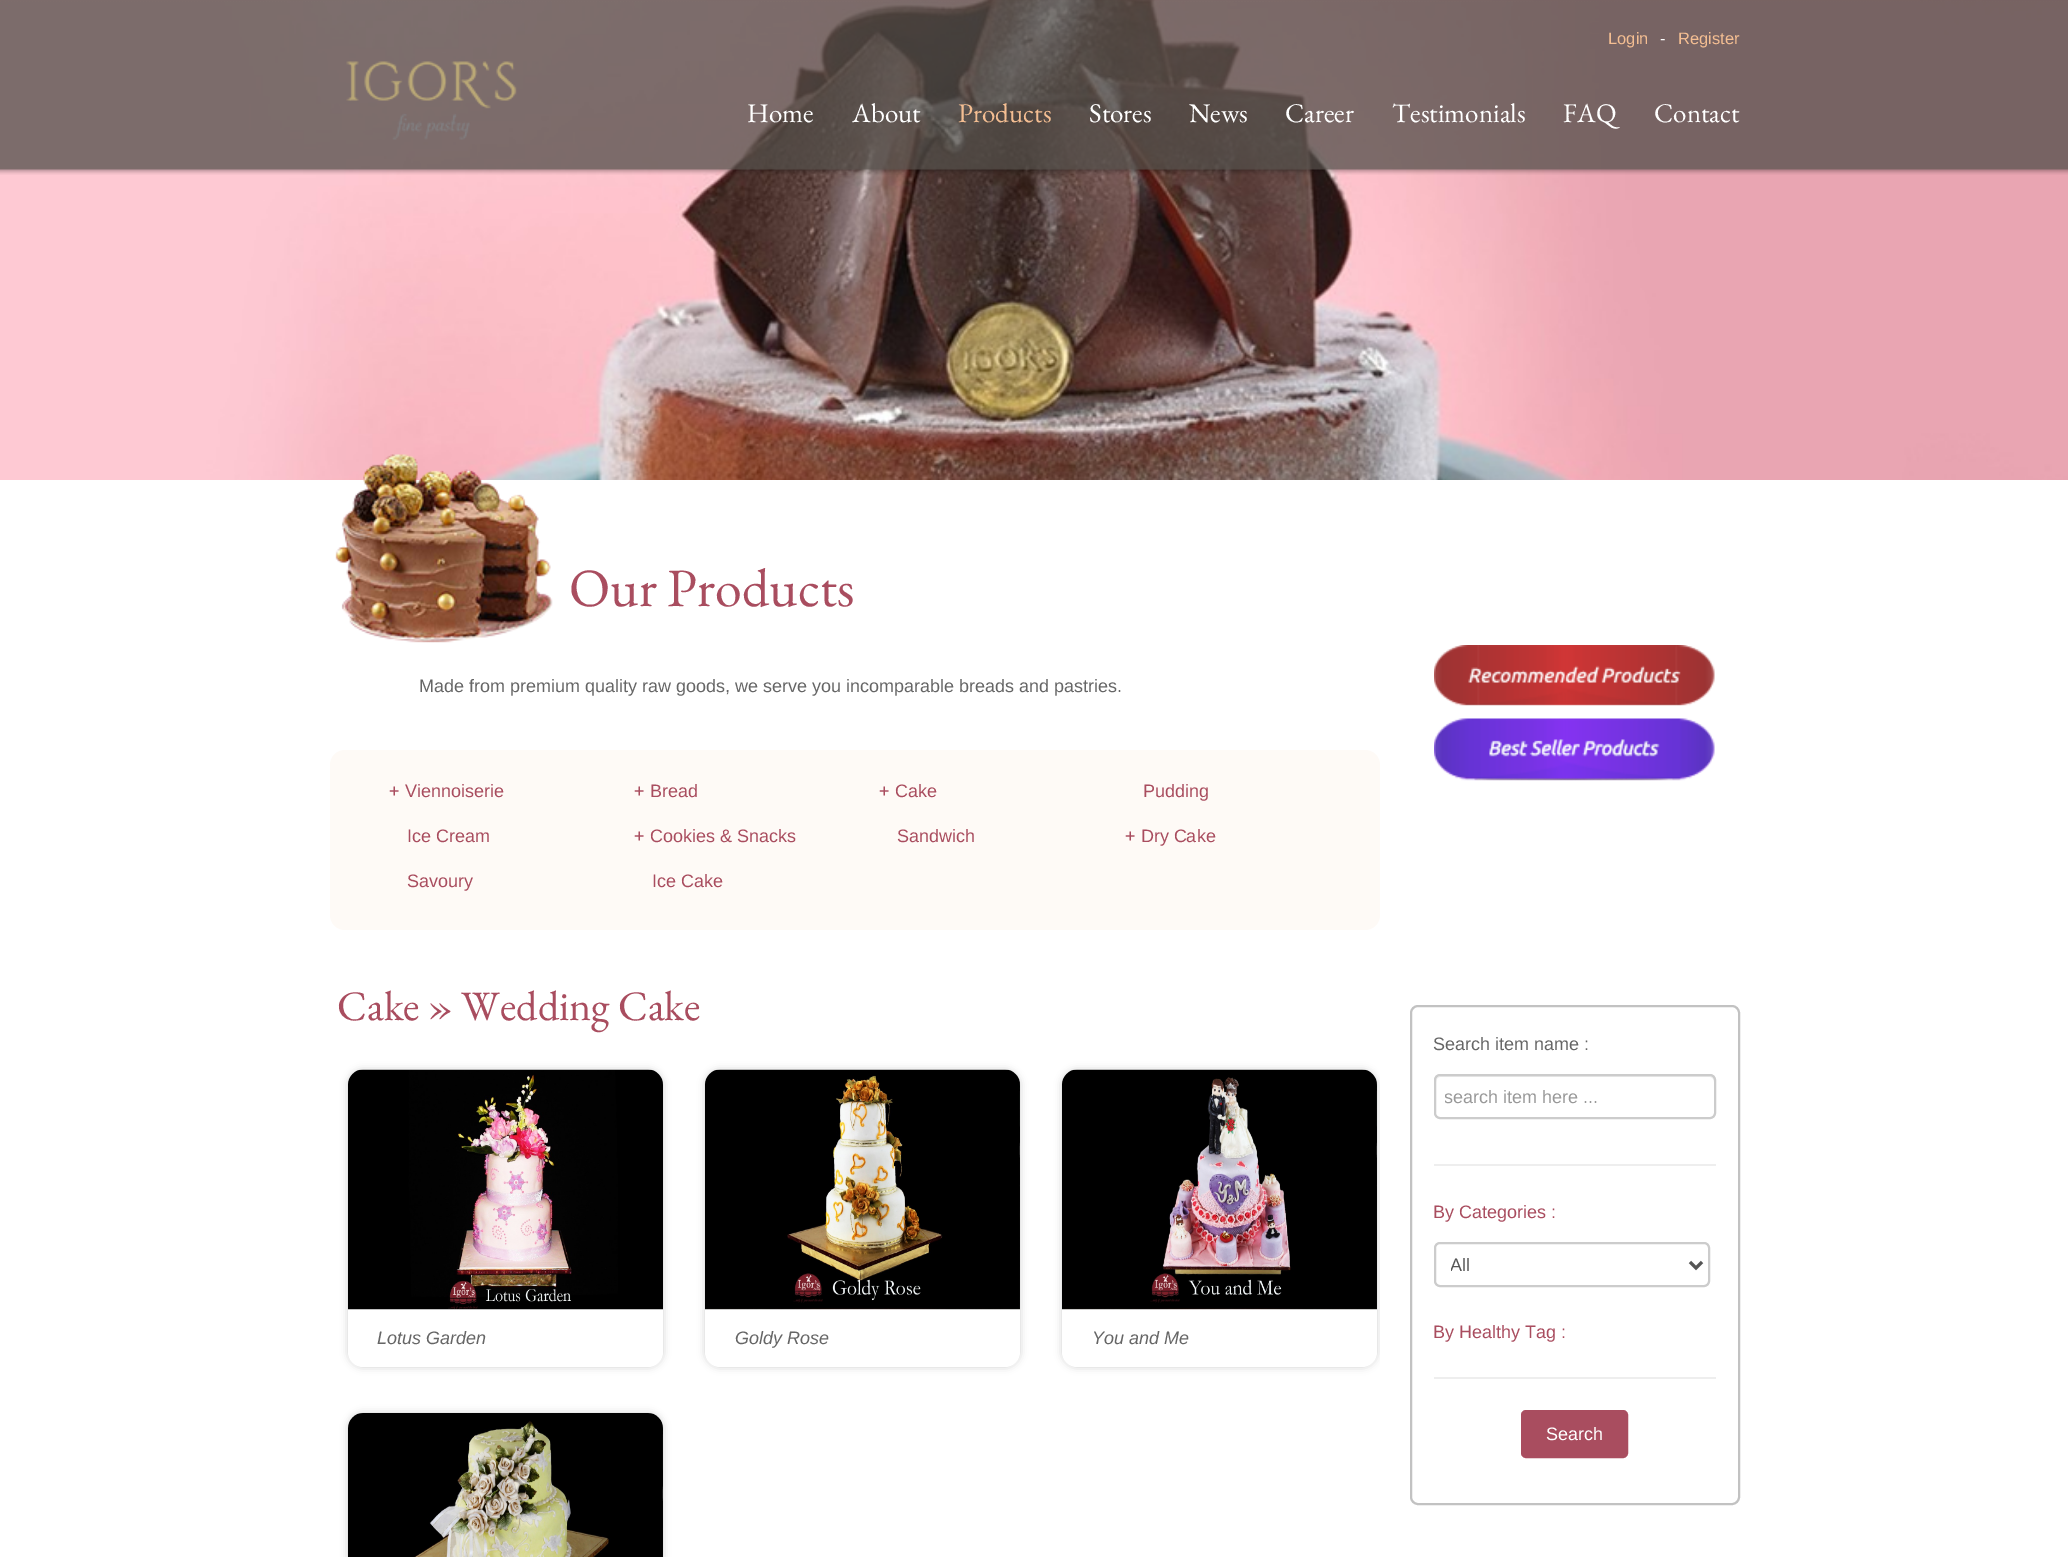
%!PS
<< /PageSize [2068 1557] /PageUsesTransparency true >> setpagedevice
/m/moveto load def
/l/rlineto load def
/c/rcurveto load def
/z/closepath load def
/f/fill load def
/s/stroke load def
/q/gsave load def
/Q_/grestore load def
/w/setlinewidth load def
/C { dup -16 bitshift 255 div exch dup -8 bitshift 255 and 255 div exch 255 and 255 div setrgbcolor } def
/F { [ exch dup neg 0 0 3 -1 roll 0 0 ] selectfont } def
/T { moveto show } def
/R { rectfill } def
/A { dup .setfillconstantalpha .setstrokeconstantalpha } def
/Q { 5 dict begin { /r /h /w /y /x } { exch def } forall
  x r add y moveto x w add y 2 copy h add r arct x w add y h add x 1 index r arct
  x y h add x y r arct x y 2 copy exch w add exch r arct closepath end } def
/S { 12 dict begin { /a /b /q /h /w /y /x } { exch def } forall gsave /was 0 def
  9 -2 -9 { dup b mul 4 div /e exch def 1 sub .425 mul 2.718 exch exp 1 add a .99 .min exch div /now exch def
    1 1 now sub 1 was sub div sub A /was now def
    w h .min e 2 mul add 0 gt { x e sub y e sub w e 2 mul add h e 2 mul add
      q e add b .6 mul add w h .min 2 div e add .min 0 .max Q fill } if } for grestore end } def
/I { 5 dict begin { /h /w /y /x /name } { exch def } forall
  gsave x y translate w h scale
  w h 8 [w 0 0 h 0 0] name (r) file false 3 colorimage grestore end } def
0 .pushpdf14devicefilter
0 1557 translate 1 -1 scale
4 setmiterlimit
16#FFFFFF C
0 0 2068 1557 R
(1.rgb) 0 0 2068 480 I
(2.rgb) 0 0 2068 175 I
/LiberationSans-Regular 16.5 F
16#F4BE92 C
(Login) 1608 44 T
16#FFFFFF C
(-) 1660 44 T
16#F4BE92 C
(Register) 1678 44 T
(3.rgb) 346 61 171 79 I
/EBGaramond-Regular 27 F
16#FFFFFF C
(Home) 747 122 T
(About) 852 122 T
16#F4BE92 C
(Products) 958 122 T
16#FFFFFF C
(Stores) 1089 122 T
(News) 1189 122 T
(Career) 1285 122 T
(Testimonials) 1392 122 T
(FAQ) 1563 122 T
(Contact) 1654 122 T
(4.rgb) 335 454 218 189 I
/EBGaramond-Regular 54 F
16#A94D5F C
(Our Products) 569 606 T
/LiberationSans-Regular 18 F
16#666666 C
(Made from premium quality raw goods, we serve you incomparable breads and pastries.) 419 692 T
16#FEFAF6 C
330 750 1050 180 15 Q f
16#A94D5F C
(+ Viennoiserie) 389 797 T
(+ Bread) 634 797 T
(+ Cake) 879 797 T
(Pudding) 1143 797 T
(Ice Cream) 407 842 T
(+ Cookies & Snacks) 634 842 T
(Sandwich) 897 842 T
(+ Dry Cake) 1125 842 T
(Savoury) 407 887 T
(Ice Cake) 652 887 T
(5.rgb) 1434 645 281 61 I
(6.rgb) 1434 718 281 63 I
/EBGaramond-Regular 42 F
(Cake » Wedding Cake) 337 1020 T
16#C2C2C2 C
348 1070 315 297 15 4 .75 S
16#FFFFFF C
348 1070 315 297 15 Q f
(7.rgb) 348 1069 315 241 I
/LiberationSans-Italic 18 F
16#666666 C
(Lotus Garden) 377 1344 T
16#C2C2C2 C
705 1070 315 297 15 4 .75 S
16#FFFFFF C
705 1070 315 297 15 Q f
(8.rgb) 705 1069 315 241 I
16#666666 C
(Goldy Rose) 735 1344 T
q
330 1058 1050 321 rectclip
16#C2C2C2 C
1062 1070 315 297 15 4 .75 S
Q_
16#FFFFFF C
1062 1070 315 297 15 Q f
(9.rgb) 1062 1069 315 241 I
16#666666 C
(You and Me) 1092 1344 T
16#C2C2C2 C
348 1413 315 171 15 4 .75 S
(10.rgb) 348 1413 315 144 I
2 w
1411 1006 328 498 7 Q s
/LiberationSans-Regular 18 F
16#666666 C
(Search item name :) 1433 1050 T
16#ECECEC C
1440 1077 m 270 0 l 2 0 4 2 4 5 c 0 32 l -1 3 l 1 -1 2 -3 2 -4 c 0 -32 l 0 -3 -2 -5 -5 -5 c -269 0 l -3 0 -5 2 -5 5 c 0 1 l 0 -3 2 -5 4 -5 c z f
16#CCCCCC C
1435 1075 280 43 5 Q s
q
1445 1086 261 21 rectclip
16#999999 C
(search item here ...) 1444 1103 T
Q_
16#EEEEEE C
1434 1164 282 2 R
16#A94D5F C
(By Categories :) 1433 1218 T
16#CCCCCC C
1435 1243 274 43 5 Q s
16#555555 C
3 w
1690 1262 m 6 6 l 6 -6 l s
q
1451 1253 225 24 rectclip
(All) 1450 1271 T
Q_
16#A94D5F C
(By Healthy Tag :) 1433 1338 T
16#EEEEEE C
1434 1377 282 2 R
16#A94D5F C
1522 1411 105 46 4 Q q f Q_
2 w
s
16#FFFFFF C
(Search) 1546 1440 T
.poppdf14devicefilter showpage
